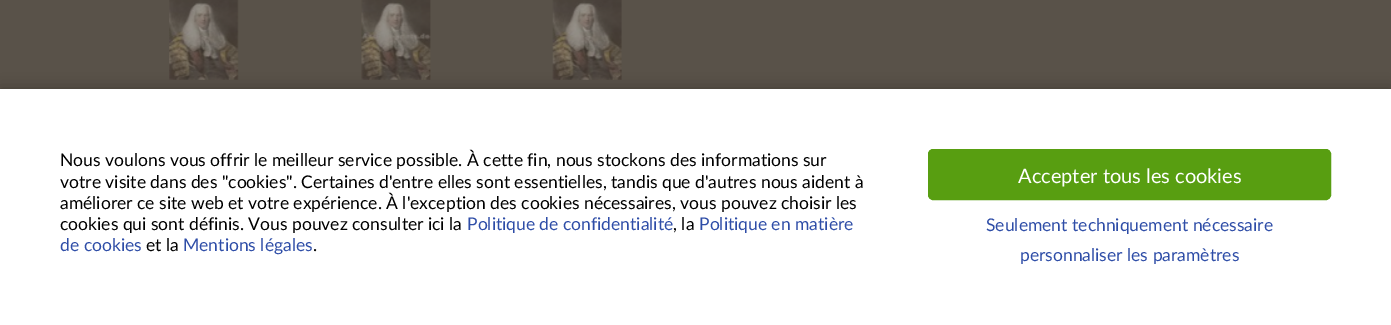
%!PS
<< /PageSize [1391 325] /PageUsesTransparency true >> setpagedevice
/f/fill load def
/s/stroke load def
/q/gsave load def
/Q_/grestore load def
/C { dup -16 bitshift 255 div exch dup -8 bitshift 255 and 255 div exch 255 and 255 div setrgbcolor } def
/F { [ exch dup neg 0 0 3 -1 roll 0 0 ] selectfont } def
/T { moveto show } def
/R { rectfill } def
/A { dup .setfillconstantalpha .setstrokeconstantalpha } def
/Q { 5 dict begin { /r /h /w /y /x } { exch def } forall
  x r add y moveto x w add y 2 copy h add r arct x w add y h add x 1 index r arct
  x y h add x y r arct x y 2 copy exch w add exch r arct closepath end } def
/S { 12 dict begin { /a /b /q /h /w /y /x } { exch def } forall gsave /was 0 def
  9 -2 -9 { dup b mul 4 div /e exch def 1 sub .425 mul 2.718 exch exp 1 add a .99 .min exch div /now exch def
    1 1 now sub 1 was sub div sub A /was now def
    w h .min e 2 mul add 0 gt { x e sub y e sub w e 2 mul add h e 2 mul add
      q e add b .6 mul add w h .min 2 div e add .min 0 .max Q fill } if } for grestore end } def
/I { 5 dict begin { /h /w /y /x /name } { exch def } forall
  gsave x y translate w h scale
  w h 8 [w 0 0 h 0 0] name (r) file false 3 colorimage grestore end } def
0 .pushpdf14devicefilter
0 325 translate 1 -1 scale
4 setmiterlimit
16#595249 C
0 0 1391 325 R
(1.rgb) 169 0 70 80 I
(2.rgb) 361 0 70 80 I
(3.rgb) 552 0 70 80 I
16#000000 C
0 89 1391 236 0 7.5 .25 S
16#FFFFFF C
0 89 1391 236 R
/Lato-Regular 17.5 F
16#000000 C
(Nous voulons vous offrir le meilleur service possible. À cette fin, nous stockons des informations sur) 60 166 T
(votre visite dans des "cookies". Certaines d'entre elles sont essentielles, tandis que d'autres nous aident à) 60 188 T
(améliorer ce site web et votre expérience. À l'exception des cookies nécessaires, vous pouvez choisir les) 60 209 T
(cookies qui sont définis. Vous pouvez consulter ici la) 60 230 T
16#2E4DA7 C
(Politique de confidentialité) 467 230 T
16#000000 C
(, la) 673 230 T
16#2E4DA7 C
(Politique en matière) 699 230 T
(de cookies) 60 251 T
16#000000 C
(et la) 146 251 T
16#2E4DA7 C
(Mentions légales) 183 251 T
16#000000 C
(.) 313 251 T
16#589E11 C
928.5 149.5 402 50 4.5 Q q f Q_
s
/Lato-Regular 20 F
16#FFFFFF C
(Accepter tous les cookies) 1018 183 T
/Lato-Regular 17.5 F
16#2E4DA7 C
(Seulement techniquement nécessaire) 986 231 T
(personnaliser les paramètres) 1020 261 T
.poppdf14devicefilter showpage
